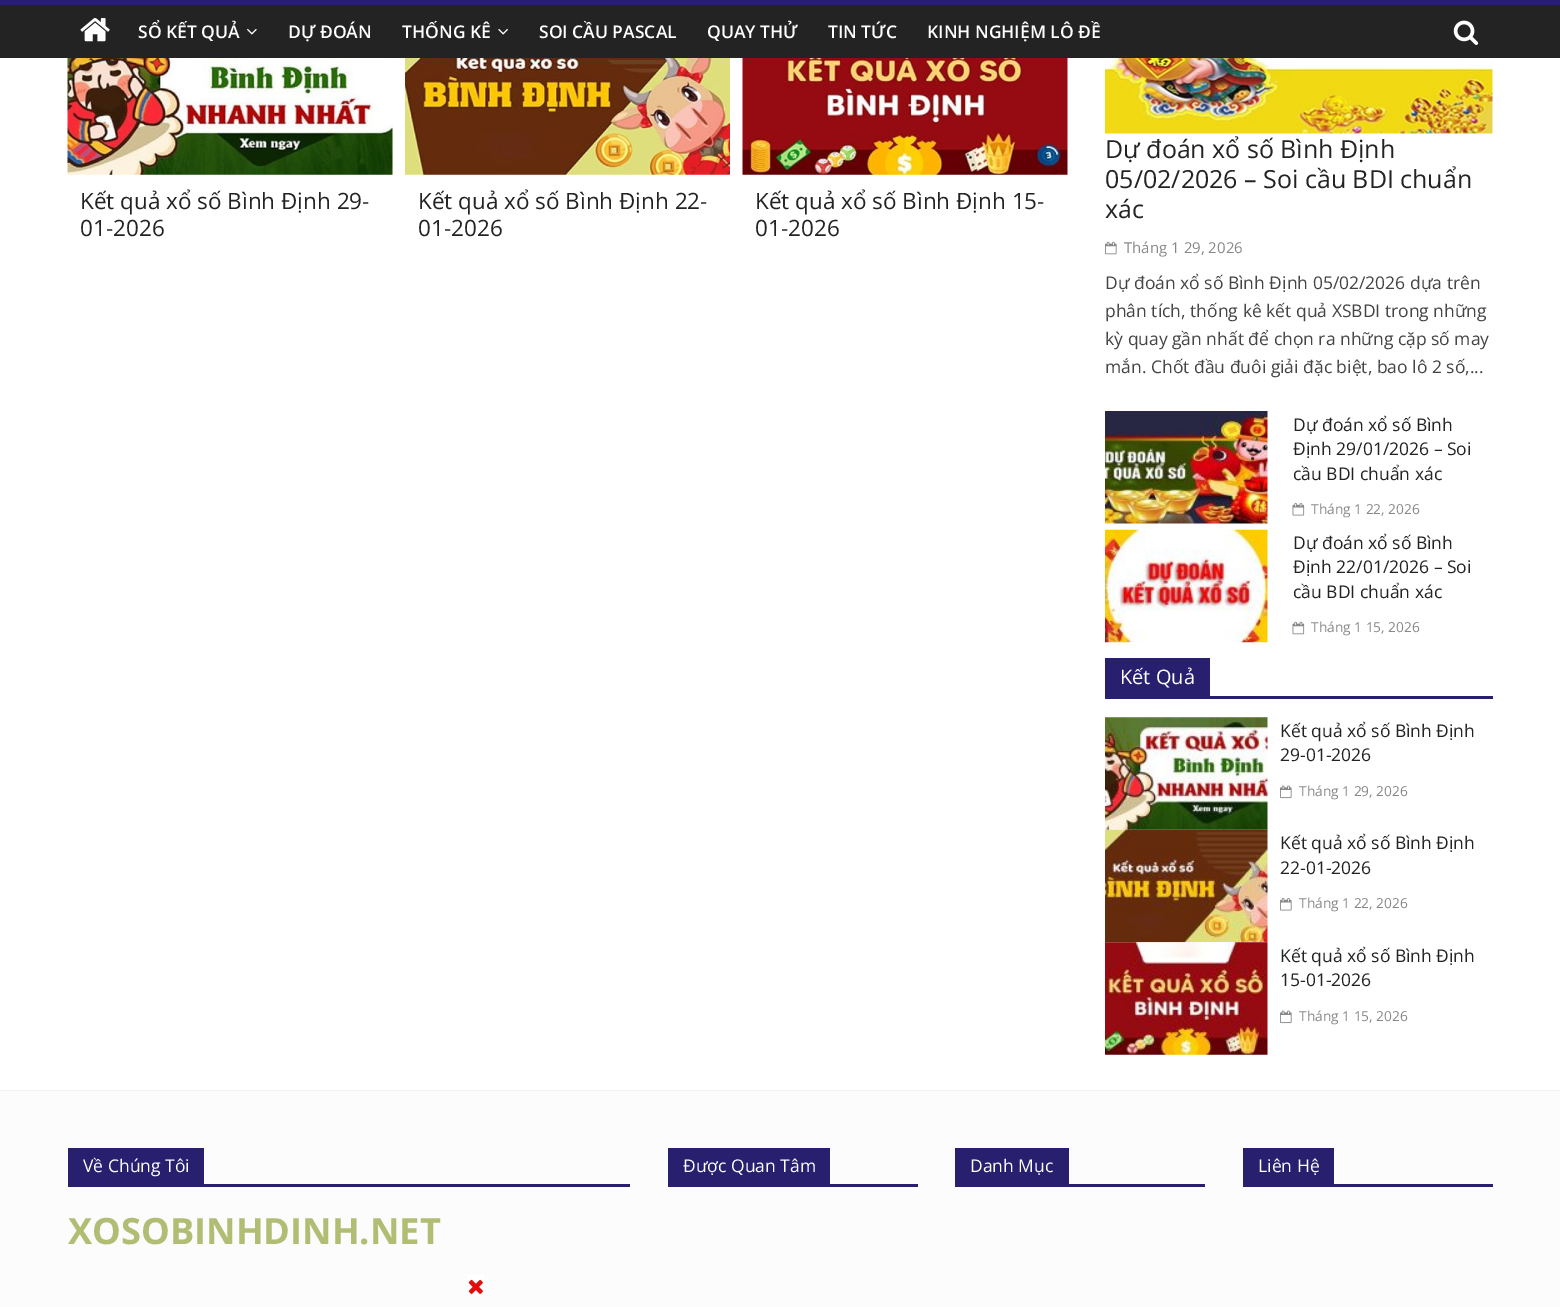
%!PS
<< /PageSize [1560 1307] >> setpagedevice
/C { dup -16 bitshift 255 div exch dup -8 bitshift 255 and 255 div exch 255 and 255 div setrgbcolor } def
/F { [ exch dup neg 0 0 3 -1 roll 0 0 ] selectfont } def
/T { moveto show } def
/R { rectfill } def
/I { 5 dict begin { /h /w /y /x /name } { exch def } forall
  gsave x y translate w h scale
  w h 8 [w 0 0 h 0 0] name (r) file false 3 colorimage grestore end } def
0 1307 translate 1 -1 scale
4 setmiterlimit
16#FFFFFF C
0 0 1560 1307 R
16#232323 C
0 5 1560 53 R
16#28206F C
0 0 1560 5 R
(1.rgb) 80 18 30 24 I
/OpenSans-SemiBold 17.5 F
16#FFFFFF C
(SỔ KẾT QUẢ) 138 38 T
(2.rgb) 247 28 10 7 I
(DỰ ĐOÁN) 288 38 T
(THỐNG KÊ) 402 38 T
(3.rgb) 498 28 10 7 I
(SOI CẦU PASCAL) 539 38 T
(QUAY THỬ) 707 38 T
(TIN TỨC) 828 38 T
(KINH NGHIỆM LÔ ĐỀ) 927 38 T
(4.rgb) 1453 20 26 25 I
(5.rgb) 67 58 326 117 I
/OpenSans-Regular 22.5 F
16#232323 C
(Kết quả xổ số Bình Định 29-) 80 209 T
(01-2026) 80 236 T
(6.rgb) 405 58 325 117 I
(Kết quả xổ số Bình Định 22-) 418 209 T
(01-2026) 418 236 T
(7.rgb) 742 58 326 117 I
(Kết quả xổ số Bình Định 15-) 755 209 T
(01-2026) 755 236 T
(8.rgb) 1105 58 388 76 I
/OpenSans-Regular 25 F
(Dự đoán xổ số Bình Định) 1105 158 T
(05/02/2026 – Soi cầu BDI chuẩn) 1105 188 T
(xác) 1105 218 T
(9.rgb) 1105 241 12 14 I
/OpenSans-Regular 15 F
16#888888 C
(Tháng 1 29, 2026) 1124 253 T
/OpenSans-Regular 17.5 F
16#444444 C
(Dự đoán xổ số Bình Định 05/02/2026 dựa trên) 1105 289 T
(phân tích, thống kê kết quả XSBDI trong những) 1105 317 T
(kỳ quay gần nhất để chọn ra những cặp số may) 1105 345 T
(mắn. Chốt đầu đuôi giải đặc biệt, bao lô 2 số,...) 1105 373 T
(10.rgb) 1105 411 163 113 I
16#232323 C
(Dự đoán xổ số Bình) 1293 431 T
(Định 29/01/2026 – Soi) 1293 455 T
(cầu BDI chuẩn xác) 1293 480 T
(11.rgb) 1292 503 13 13 I
/OpenSans-Regular 13.75 F
16#888888 C
(Tháng 1 22, 2026) 1311 514 T
(12.rgb) 1105 529 163 114 I
/OpenSans-Regular 17.5 F
16#232323 C
(Dự đoán xổ số Bình) 1293 549 T
(Định 22/01/2026 – Soi) 1293 573 T
(cầu BDI chuẩn xác) 1293 598 T
(13.rgb) 1292 621 13 14 I
/OpenSans-Regular 13.75 F
16#888888 C
(Tháng 1 15, 2026) 1311 632 T
16#28206F C
1105 696 388 3 R
1105 658 105 38 R
/OpenSans-Regular 20 F
16#FFFFFF C
(Kết Quả) 1120 684 T
(14.rgb) 1105 717 163 113 I
/OpenSans-Regular 17.5 F
16#232323 C
(Kết quả xổ số Bình Định) 1280 737 T
(29-01-2026) 1280 761 T
(15.rgb) 1280 785 12 14 I
/OpenSans-Regular 13.75 F
16#888888 C
(Tháng 1 29, 2026) 1299 796 T
(16.rgb) 1105 829 163 114 I
/OpenSans-Regular 17.5 F
16#232323 C
(Kết quả xổ số Bình Định) 1280 849 T
(22-01-2026) 1280 874 T
(17.rgb) 1280 898 12 13 I
/OpenSans-Regular 13.75 F
16#888888 C
(Tháng 1 22, 2026) 1299 908 T
(18.rgb) 1105 942 163 113 I
/OpenSans-Regular 17.5 F
16#232323 C
(Kết quả xổ số Bình Định) 1280 962 T
(15-01-2026) 1280 986 T
(15.rgb) 1280 1010 12 14 I
/OpenSans-Regular 13.75 F
16#888888 C
(Tháng 1 15, 2026) 1299 1021 T
16#FCFCFD C
0 1091 1560 216 R
16#F2F2F2 C
0 1090 1560 1 R
16#28206F C
68 1184 562 3 R
68 1148 136 36 R
/OpenSans-Regular 17.5 F
16#FFFFFF C
(Về Chúng Tôi) 83 1172 T
/OpenSans-Bold 36.25 F
16#B0BD73 C
(XOSOBINHDINH.NET) 68 1244 T
16#28206F C
668 1184 250 3 R
668 1148 162 36 R
/OpenSans-Regular 17.5 F
16#FFFFFF C
(Được Quan Tâm) 683 1172 T
16#28206F C
955 1184 250 3 R
955 1148 114 36 R
16#FFFFFF C
(Danh Mục) 970 1172 T
16#28206F C
1243 1184 250 3 R
1243 1148 91 36 R
16#FFFFFF C
(Liên Hệ) 1258 1172 T
468 1275 16 21 R
(19.rgb) 468 1279 15 15 I
showpage
